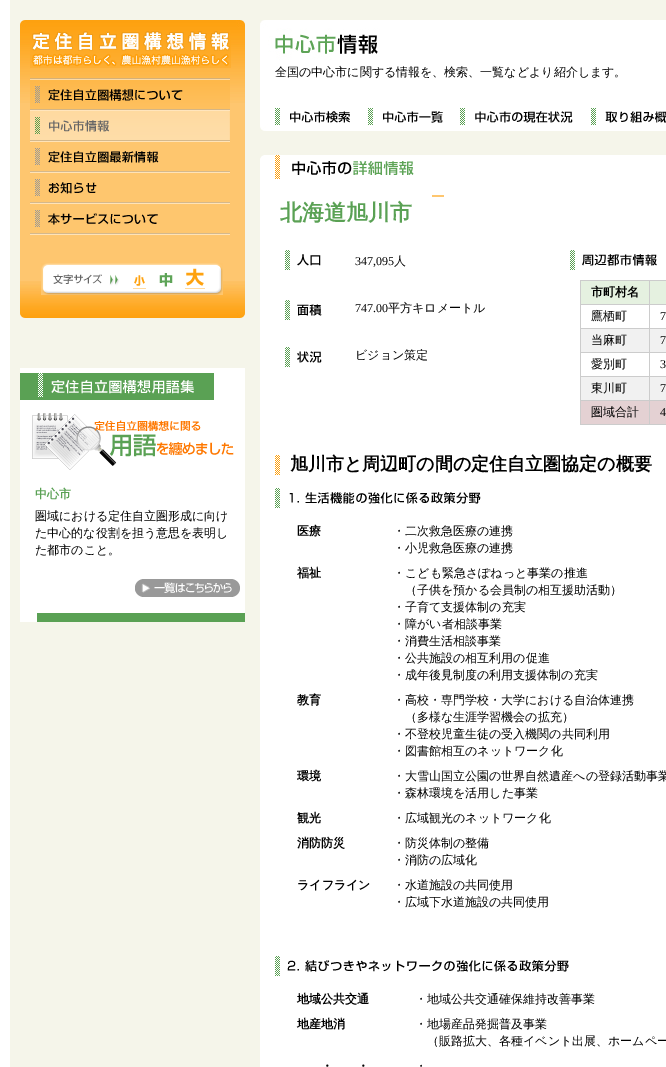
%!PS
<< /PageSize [666 1067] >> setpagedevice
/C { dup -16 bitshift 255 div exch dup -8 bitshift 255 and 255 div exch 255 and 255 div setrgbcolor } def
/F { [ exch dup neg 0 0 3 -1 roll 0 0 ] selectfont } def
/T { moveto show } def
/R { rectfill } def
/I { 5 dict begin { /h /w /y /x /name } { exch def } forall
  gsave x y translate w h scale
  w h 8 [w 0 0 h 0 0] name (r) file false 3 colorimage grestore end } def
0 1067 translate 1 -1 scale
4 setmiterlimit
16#FFFFFF C
0 0 666 1067 R
16#F5F5EA C
10 0 656 1067 R
16#FEC66F C
20 103 225 178 R
(1.rgb) 20 20 225 83 I
(2.rgb) 20 281 225 37 I
(3.rgb) 30 31 201 37 I
(4.rgb) 30 78 200 32 I
(5.rgb) 30 110 200 31 I
(6.rgb) 30 141 200 31 I
(7.rgb) 30 172 200 31 I
(8.rgb) 30 203 200 32 I
(9.rgb) 41 263 182 32 I
(10.rgb) 133 275 13 14 I
(11.rgb) 159 273 14 14 I
(12.rgb) 185 268 20 21 I
16#FFFFFF C
20 368 225 254 R
16#5AA154 C
37 613 208 9 R
(13.rgb) 20 373 194 27 I
(14.rgb) 32 413 202 57 I
/WenQuanYiZenHei-Bold 12 F
(中心市) 35 498 T
/WenQuanYiZenHei-Medium 12 F
16#000000 C
(圏域における定住自立圏形成に向け) 35 520 T
(た中心的な役割を担う意思を表明し) 35 537 T
(た都市のこと。) 35 554 T
(15.rgb) 135 579 105 18 I
(16.rgb) 260 20 406 111 I
(全国の中心市に関する情報を、検索、一覧などより紹介します。) 275 76 T
(17.rgb) 275 108 75 17 I
(18.rgb) 368 108 75 17 I
(19.rgb) 460 108 113 17 I
(20.rgb) 591 108 75 17 I
16#FFFFFF C
260 155 406 912 R
(21.rgb) 260 155 4 4 I
(22.rgb) 275 155 139 24 I
16#FEC66F C
432 195 12 2 R
/WenQuanYiZenHei-Bold 22 F
16#5AA154 C
(北海道旭川市) 280 220 T
(23.rgb) 285 250 36 20 I
/LiberationSerif-Regular 12 F
16#000000 C
(347,095) 355 265 T
/WenQuanYiZenHei-Medium 12 F
(人) 394 265 T
(24.rgb) 285 300 37 20 I
/LiberationSerif-Regular 12 F
(747.00) 355 312 T
/WenQuanYiZenHei-Medium 12 F
(平方キロメートル) 388 312 T
(25.rgb) 285 347 37 20 I
(ビジョン策定) 355 359 T
(26.rgb) 570 250 87 20 I
16#E5F1E0 C
581 281 68 23 R
16#CCCCCC C
649 280 17 1 R
649 304 17 1 R
649 328 17 1 R
16#F1F1F1 C
581 329 85 23 R
16#CCCCCC C
649 352 17 1 R
649 376 17 1 R
16#F1F1F1 C
581 377 85 23 R
16#CCCCCC C
649 400 17 1 R
16#E4D1D3 C
581 401 85 23 R
16#CCCCCC C
649 424 17 1 R
649 400 1 25 R
580 400 70 1 R
649 376 1 25 R
580 376 70 1 R
649 352 1 25 R
580 352 70 1 R
649 328 1 25 R
580 328 70 1 R
649 304 1 25 R
580 304 70 1 R
649 280 1 25 R
580 280 70 1 R
580 424 70 1 R
580 400 1 25 R
580 376 1 25 R
580 352 1 25 R
580 328 1 25 R
580 304 1 25 R
580 280 1 25 R
/WenQuanYiZenHei-Bold 12 F
16#000000 C
(市町村名) 591 296 T
16#E5F1E0 C
650 281 16 23 R
/WenQuanYiZenHei-Medium 12 F
16#000000 C
(鷹栖町) 591 320 T
/LiberationSerif-Regular 12 F
(7) 660 320 T
/WenQuanYiZenHei-Medium 12 F
(当麻町) 591 344 T
/LiberationSerif-Regular 12 F
(7) 660 344 T
/WenQuanYiZenHei-Medium 12 F
(愛別町) 591 368 T
/LiberationSerif-Regular 12 F
(3) 660 368 T
/WenQuanYiZenHei-Medium 12 F
(東川町) 591 392 T
/LiberationSerif-Regular 12 F
(7) 660 392 T
/WenQuanYiZenHei-Medium 12 F
(圏域合計) 591 416 T
/LiberationSerif-Regular 12 F
(4) 660 416 T
(27.rgb) 275 455 5 20 I
/WenQuanYiZenHei-Bold 18 F
(旭川市と周辺町の間の定住自立圏協定の概要) 290 470 T
(28.rgb) 275 488 206 20 I
/WenQuanYiZenHei-Bold 12 F
(医療) 297 535 T
/WenQuanYiZenHei-Medium 12 F
(・二次救急医療の連携) 393 535 T
(・小児救急医療の連携) 393 552 T
/WenQuanYiZenHei-Bold 12 F
(福祉) 297 577 T
/WenQuanYiZenHei-Medium 12 F
(・こども緊急さぽねっと事業の推進) 393 577 T
(（子供を預かる会員制の相互援助活動）) 405 594 T
(・子育て支援体制の充実) 393 611 T
(・障がい者相談事業) 393 628 T
(・消費生活相談事業) 393 645 T
(・公共施設の相互利用の促進) 393 662 T
(・成年後見制度の利用支援体制の充実) 393 679 T
/WenQuanYiZenHei-Bold 12 F
(教育) 297 704 T
/WenQuanYiZenHei-Medium 12 F
(・高校・専門学校・大学における自治体連携) 393 704 T
(（多様な生涯学習機会の拡充）) 405 721 T
(・不登校児童生徒の受入機関の共同利用) 393 738 T
(・図書館相互のネットワーク化) 393 755 T
/WenQuanYiZenHei-Bold 12 F
(環境) 297 780 T
/WenQuanYiZenHei-Medium 12 F
(・大雪山国立公園の世界自然遺産への登録活動事業) 393 780 T
(・森林環境を活用した事業) 393 797 T
/WenQuanYiZenHei-Bold 12 F
(観光) 297 822 T
/WenQuanYiZenHei-Medium 12 F
(・広域観光のネットワーク化) 393 822 T
/WenQuanYiZenHei-Bold 12 F
(消防防災) 297 847 T
/WenQuanYiZenHei-Medium 12 F
(・防災体制の整備) 393 847 T
(・消防の広域化) 393 864 T
/WenQuanYiZenHei-Bold 12 F
(ライフライン) 297 889 T
/WenQuanYiZenHei-Medium 12 F
(・水道施設の共同使用) 393 889 T
(・広域下水道施設の共同使用) 393 906 T
(29.rgb) 275 956 294 20 I
/WenQuanYiZenHei-Bold 12 F
(地域公共交通) 297 1003 T
/WenQuanYiZenHei-Medium 12 F
(・地域公共交通確保維持改善事業) 415 1003 T
/WenQuanYiZenHei-Bold 12 F
(地産地消) 297 1028 T
/WenQuanYiZenHei-Medium 12 F
(・地場産品発掘普及事業) 415 1028 T
(（販路拡大、各種イベント出展、ホームペー) 427 1045 T
/WenQuanYiZenHei-Bold 12 F
(・) 321 1070 T
(・) 357 1070 T
/WenQuanYiZenHei-Medium 12 F
(・) 415 1070 T
showpage
